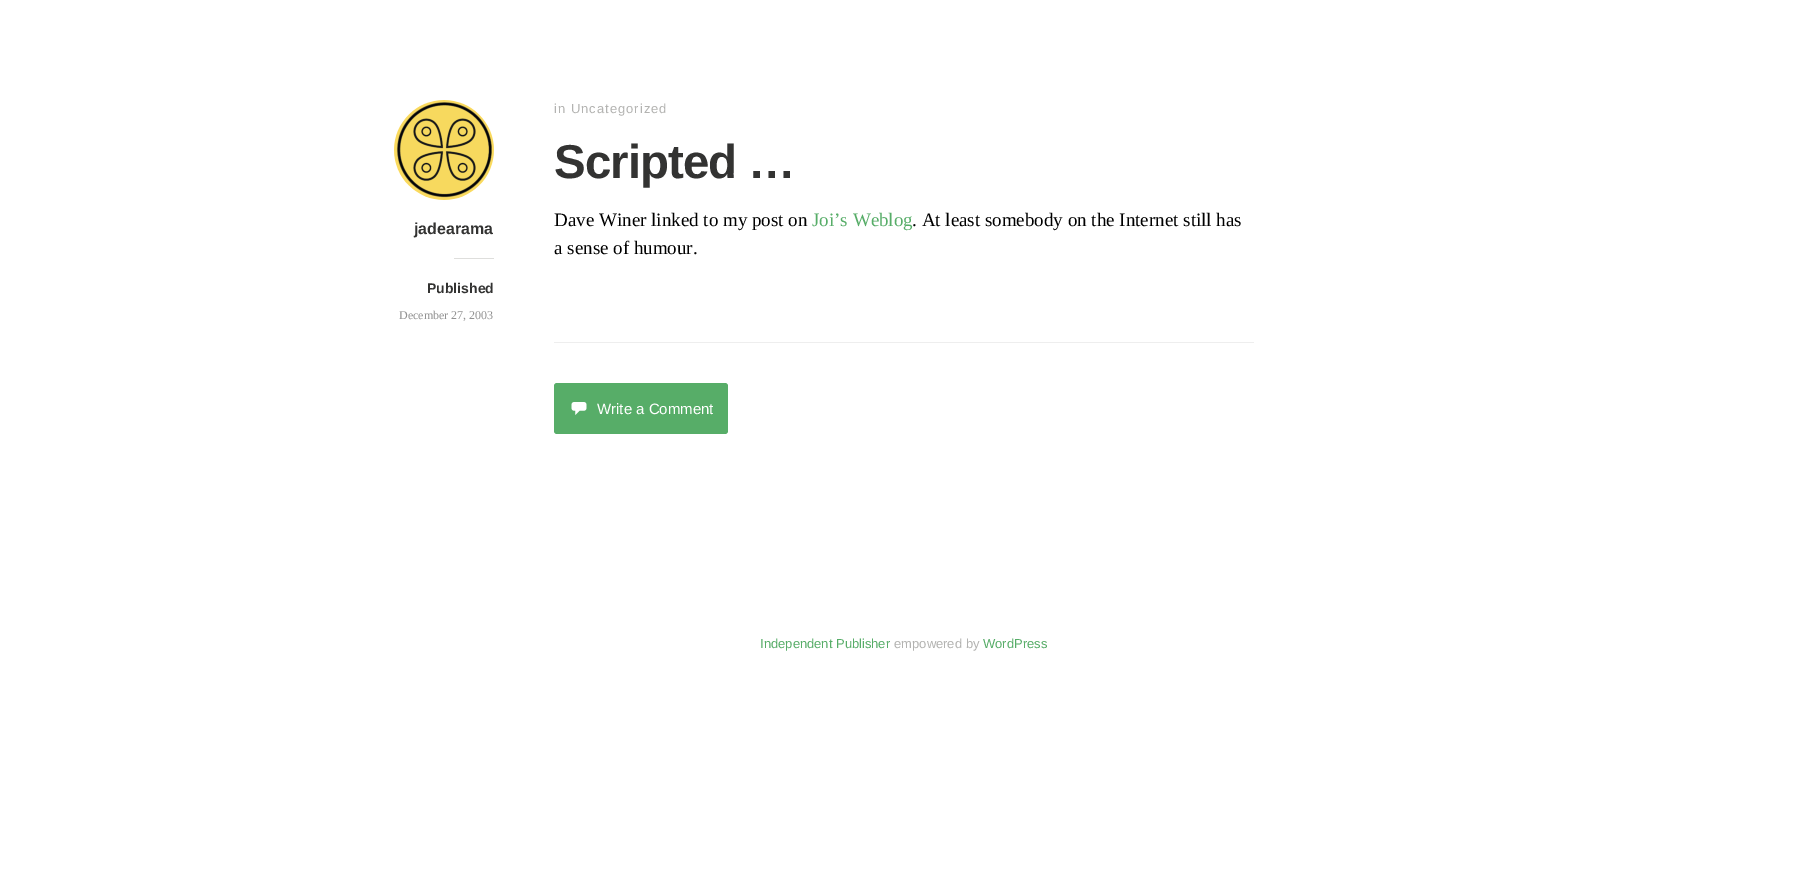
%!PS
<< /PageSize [1807 870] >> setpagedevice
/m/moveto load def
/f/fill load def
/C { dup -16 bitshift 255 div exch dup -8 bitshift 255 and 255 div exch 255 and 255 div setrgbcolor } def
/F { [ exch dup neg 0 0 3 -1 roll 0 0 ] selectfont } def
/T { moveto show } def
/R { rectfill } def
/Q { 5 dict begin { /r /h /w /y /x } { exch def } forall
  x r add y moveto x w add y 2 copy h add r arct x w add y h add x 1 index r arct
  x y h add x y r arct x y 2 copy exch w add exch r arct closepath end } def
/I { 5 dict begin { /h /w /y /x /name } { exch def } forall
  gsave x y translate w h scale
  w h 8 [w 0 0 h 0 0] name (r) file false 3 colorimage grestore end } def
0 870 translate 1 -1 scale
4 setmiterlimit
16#FFFFFF C
0 0 1807 870 R
(1.rgb) 394 100 100 100 I
/LiberationSans-Bold 16 F
16#333332 C
(jadearama) 414 234 T
16#DEDEDC C
454 258 40 1 R
/LiberationSans-Bold 14 F
16#333332 C
(Published) 427 293 T
/LiberationSerif-Regular 12 F
16#929292 C
(December 27, 2003) 399 319 T
/LiberationSans-Regular 13 F
16#B3B3B1 C
554 113 m 1 0 (in Uncategorized) ashow
/LiberationSans-Bold 47.5 F
16#333332 C
554 178 m -1 0 (Scripted …) ashow
/LiberationSerif-Regular 19 F
16#000000 C
(Dave Winer linked to my post on) 554 226 T
16#57AD68 C
(Joi’s Weblog) 812 226 T
16#000000 C
(. At least somebody on the Internet still has) 912 226 T
(a sense of humour.) 554 254 T
16#EEEEEE C
554 342 700 1 R
16#57AD68 C
554 383 174 51 3 Q f
(2.rgb) 571 402 16 13 I
/LiberationSans-Regular 15 F
16#FFFFFF C
(Write a Comment) 597 414 T
/LiberationSans-Regular 13 F
16#57AD68 C
(Independent Publisher) 760 648 T
16#B3B3B1 C
(empowered by) 894 648 T
16#57AD68 C
(WordPress) 983 648 T
showpage
